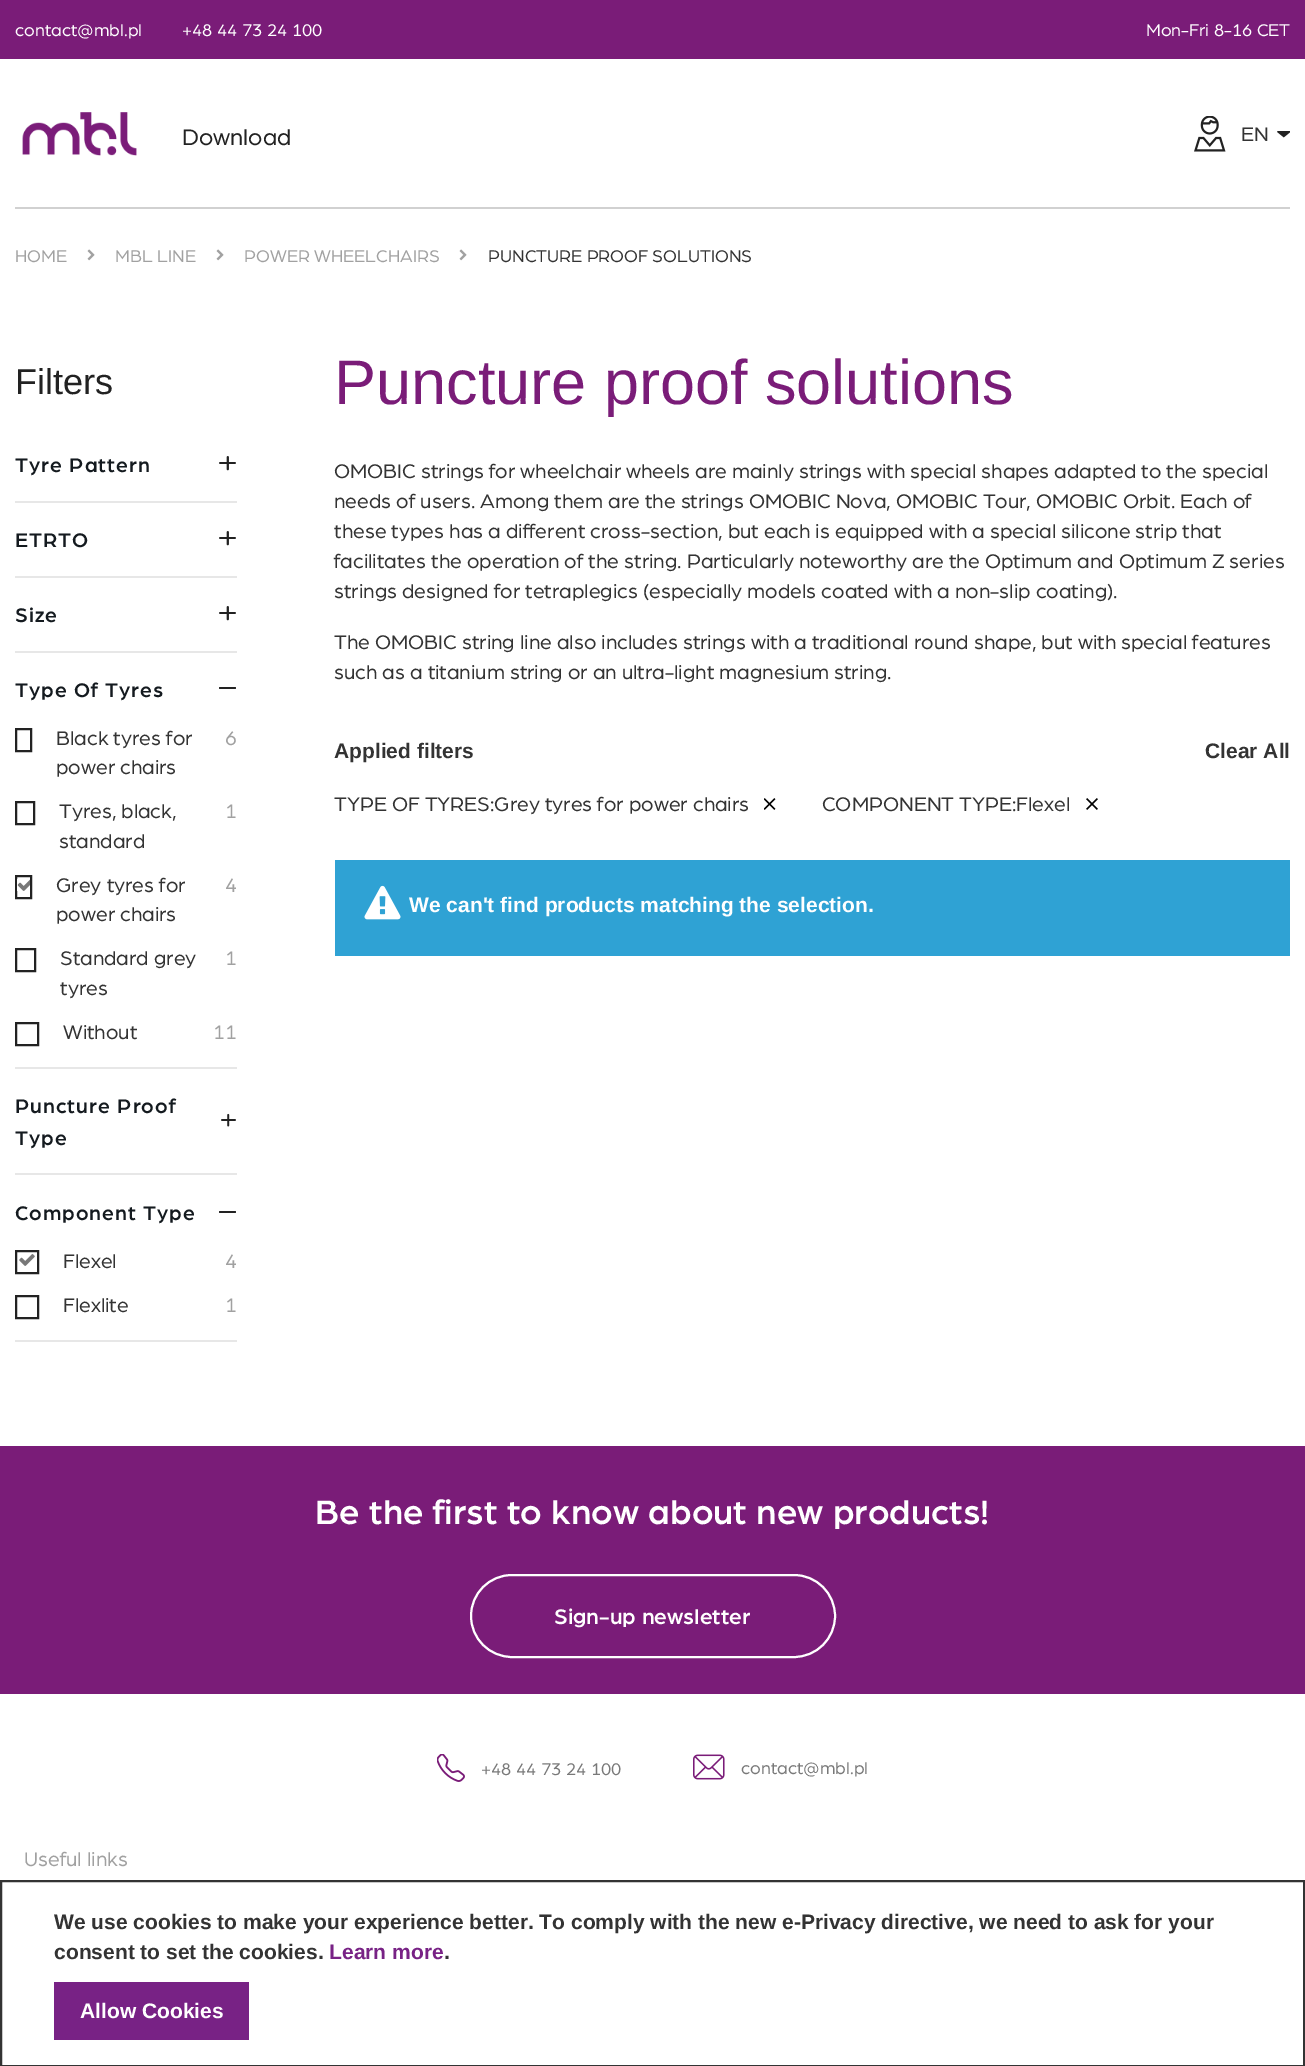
%!PS
<< /PageSize [1305 2066] >> setpagedevice
/m/moveto load def
/f/fill load def
/s/stroke load def
/w/setlinewidth load def
/C { dup -16 bitshift 255 div exch dup -8 bitshift 255 and 255 div exch 255 and 255 div setrgbcolor } def
/F { [ exch dup neg 0 0 3 -1 roll 0 0 ] selectfont } def
/T { moveto show } def
/R { rectfill } def
/Q { 5 dict begin { /r /h /w /y /x } { exch def } forall
  x r add y moveto x w add y 2 copy h add r arct x w add y h add x 1 index r arct
  x y h add x y r arct x y 2 copy exch w add exch r arct closepath end } def
/I { 5 dict begin { /h /w /y /x /name } { exch def } forall
  gsave x y translate w h scale
  w h 8 [w 0 0 h 0 0] name (r) file false 3 colorimage grestore end } def
0 2066 translate 1 -1 scale
4 setmiterlimit
16#FFFFFF C
0 0 1305 2066 R
16#7A1C78 C
0 0 1305 59 R
/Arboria-Regular 18 F
16#FFFFFF C
(contact@mbl.pl) 15 36 T
(+48 44 73 24 100) 182 36 T
(Mon-Fri 8-16 CET) 1146 36 T
(1.rgb) 22 112 115 44 I
/Arboria-Regular 24 F
16#222222 C
(Download) 182 145 T
(2.rgb) 1194 116 32 36 I
/Arboria-Regular 21 F
16#333333 C
(EN) 1241 141 T
(3.rgb) 1277 131 13 7 I
16#D1D1D1 C
15 207 1275 2 R
/Arboria-Regular 18 F
16#A1A1A1 C
(HOME) 15 262 T
(4.rgb) 87 249 8 12 I
(MBL LINE) 115 262 T
(4.rgb) 216 249 8 12 I
(POWER WHEELCHAIRS) 244 262 T
(4.rgb) 459 249 8 12 I
16#333333 C
(PUNCTURE PROOF SOLUTIONS) 488 262 T
/LiberationSans-Regular 36 F
16#222222 C
(Filters) 15 394 T
16#E7E7E7 C
15 501 222 2 R
/Arboria-Medium 21 F
16#141A1F C
15 472 m 1 0 (Tyre Pattern) ashow
(5.rgb) 219 456 17 15 I
16#E7E7E7 C
15 576 222 2 R
16#141A1F C
15 547 m 1 0 (ETRTO) ashow
(5.rgb) 219 531 17 15 I
16#E7E7E7 C
15 651 222 2 R
16#141A1F C
15 622 m 1 0 (Size) ashow
(5.rgb) 219 606 17 15 I
16#E7E7E7 C
15 1067 222 2 R
16#141A1F C
15 697 m 1 0 (Type Of Tyres) ashow
16#222222 C
219 687 17 2 1 Q f
2 w
16 729 15 22 rectstroke
/Arboria-Regular 21 F
16#333333 C
(Black tyres for) 56 745 T
16#A1A1A1 C
(6) 225 745 T
16#333333 C
(power chairs) 56 774 T
16#222222 C
16 802 18 22 rectstroke
16#333333 C
(Tyres, black,) 59 818 T
16#A1A1A1 C
(1) 225 818 T
16#333333 C
(standard) 59 848 T
16#222222 C
16 876 15 22 rectstroke
(6.rgb) 17 879 13 12 I
16#333333 C
(Grey tyres for) 56 892 T
16#A1A1A1 C
(4) 225 892 T
16#333333 C
(power chairs) 56 921 T
16#222222 C
16 949 19 22 rectstroke
16#333333 C
(Standard grey) 60 965 T
16#A1A1A1 C
(1) 225 965 T
16#333333 C
(tyres) 60 995 T
16#222222 C
16 1023 22 22 rectstroke
16#333333 C
(Without) 63 1039 T
16#A1A1A1 C
(11) 213 1039 T
16#E7E7E7 C
15 1173 222 2 R
/Arboria-Medium 21 F
16#141A1F C
15 1113 m 1 0 (Puncture Proof) ashow
(7.rgb) 221 1113 15 14 I
15 1145 m 1 0 (Type) ashow
16#E7E7E7 C
15 1340 222 2 R
16#141A1F C
15 1220 m 1 0 (Component Type) ashow
16#222222 C
219 1211 17 2 1 Q f
16 1251 22 22 rectstroke
(8.rgb) 19 1254 16 12 I
/Arboria-Regular 21 F
16#333333 C
(Flexel) 63 1268 T
16#A1A1A1 C
(4) 225 1268 T
16#222222 C
16 1296 22 22 rectstroke
16#333333 C
(Flexlite) 63 1312 T
16#A1A1A1 C
(1) 225 1312 T
/LiberationSans-Regular 63 F
16#7A1C78 C
(Puncture proof solutions) 334 404 T
/Arboria-Regular 21 F
16#333333 C
(OMOBIC strings for wheelchair wheels are mainly strings with special shapes adapted to the special) 334 478 T
(needs of users. Among them are the strings OMOBIC Nova, OMOBIC Tour, OMOBIC Orbit. Each of) 334 508 T
(these types has a different cross-section, but each is equipped with a special silicone strip that) 334 538 T
(facilitates the operation of the string. Particularly noteworthy are the Optimum and Optimum Z series) 334 568 T
(strings designed for tetraplegics \(especially models coated with a non-slip coating\).) 334 598 T
(The OMOBIC string line also includes strings with a traditional round shape, but with special features) 334 649 T
(such as a titanium string or an ultra-light magnesium string.) 334 679 T
/LiberationSans-Bold 21 F
(Applied filters) 334 758 T
(Clear All) 1205 758 T
/Arboria-Regular 21 F
(TYPE OF TYRES:Grey tyres for power chairs) 334 811 T
(9.rgb) 764 798 12 12 I
(COMPONENT TYPE:Flexel) 822 811 T
(10.rgb) 1086 798 12 12 I
16#2FA2D4 C
335 860 955 96 R
(11.rgb) 364 885 37 35 I
/LiberationSans-Bold 21 F
16#FFFFFF C
(We can't find products matching the selection.) 409 912 T
16#7A1C78 C
0 1446 1305 248 R
/Arboria-Medium 36 F
16#FFFFFF C
(Be the first to know about new products!) 315 1524 T
471 1575 364 82 41 Q s
/Arboria-Medium 22.5 F
(Sign-up newsletter) 554 1624 T
(12.rgb) 437 1754 28 28 I
/Arboria-Regular 18 F
16#797979 C
(+48 44 73 24 100) 481 1775 T
(13.rgb) 693 1754 32 26 I
(contact@mbl.pl) 741 1774 T
/Arboria-Regular 21 F
16#A1A1A1 C
(Useful links) 24 1866 T
16#333333 C
1 1881 1303 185 rectstroke
/LiberationSans-Bold 21 F
(We use cookies to make your experience better. To comply with the new e-Privacy directive, we need to ask for your) 54 1929 T
(consent to set the cookies.) 54 1959 T
16#782285 C
(Learn more) 329 1959 T
16#333333 C
(.) 444 1959 T
16#782285 C
54 1982 195 58 R
16#FFFFFF C
(Allow Cookies) 80 2018 T
showpage
